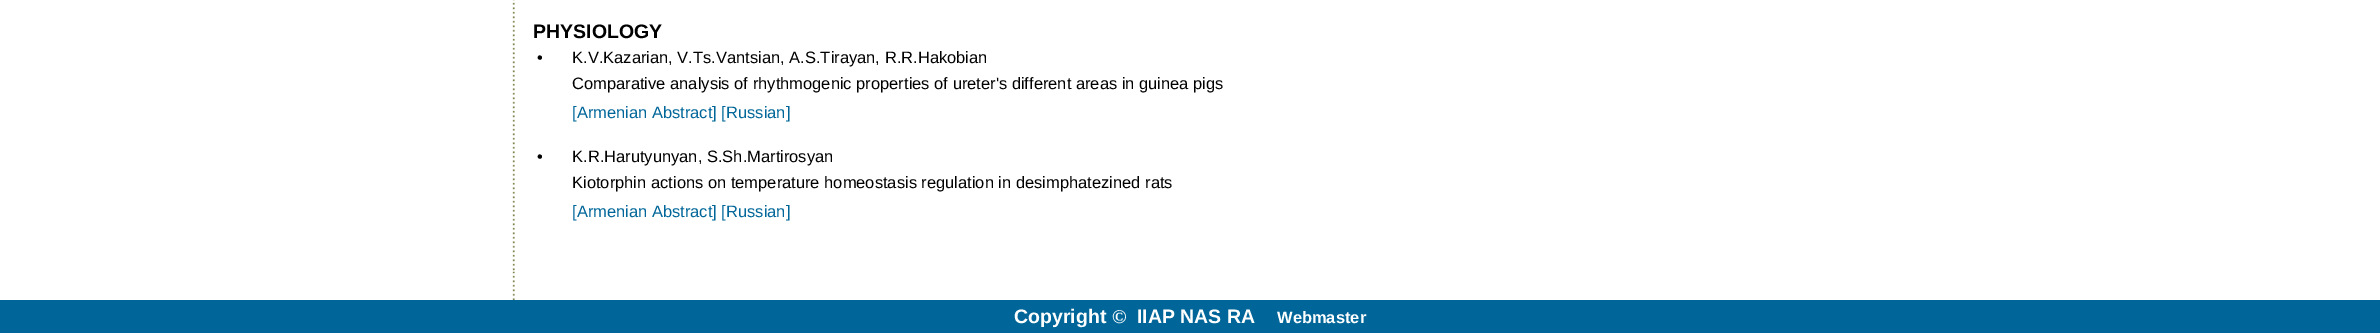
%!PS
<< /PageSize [2380 333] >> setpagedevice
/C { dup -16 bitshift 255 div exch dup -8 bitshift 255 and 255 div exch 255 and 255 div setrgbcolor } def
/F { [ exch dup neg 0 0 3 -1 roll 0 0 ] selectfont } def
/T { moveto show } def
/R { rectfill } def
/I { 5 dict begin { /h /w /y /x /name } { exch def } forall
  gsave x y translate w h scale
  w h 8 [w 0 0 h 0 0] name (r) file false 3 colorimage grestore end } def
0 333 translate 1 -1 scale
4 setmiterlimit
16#FFFFFF C
0 0 2380 333 R
(1.rgb) 512 0 3 271 I
/LiberationSans-Bold 19.5 F
16#000000 C
(PHYSIOLOGY) 533 38 T
/LiberationSans-Regular 16.5 F
(•) 537 63 T
(K.V.Kazarian, V.Ts.Vantsian, A.S.Tirayan, R.R.Hakobian) 572 63 T
(Comparative analysis of rhythmogenic properties of ureter's different areas in guinea pigs) 572 89 T
16#006699 C
([Armenian Abstract] [Russian]) 572 118 T
16#000000 C
(•) 537 162 T
(K.R.Harutyunyan, S.Sh.Martirosyan) 572 162 T
(Kiotorphin actions on temperature homeostasis regulation in desimphatezined rats) 572 188 T
16#006699 C
([Armenian Abstract] [Russian]) 572 217 T
(2.rgb) 512 271 3 29 I
0 300 2380 33 R
/LiberationSans-Bold 19.5 F
16#FFFFFF C
(Copyright) 1014 323 T
/LiberationSerif-Bold 19.5 F
(©) 1112 323 T
/LiberationSans-Bold 19.5 F
(IIAP NAS RA) 1137 323 T
/LiberationSans-Bold 16.5 F
(Webmaster) 1277 323 T
showpage
